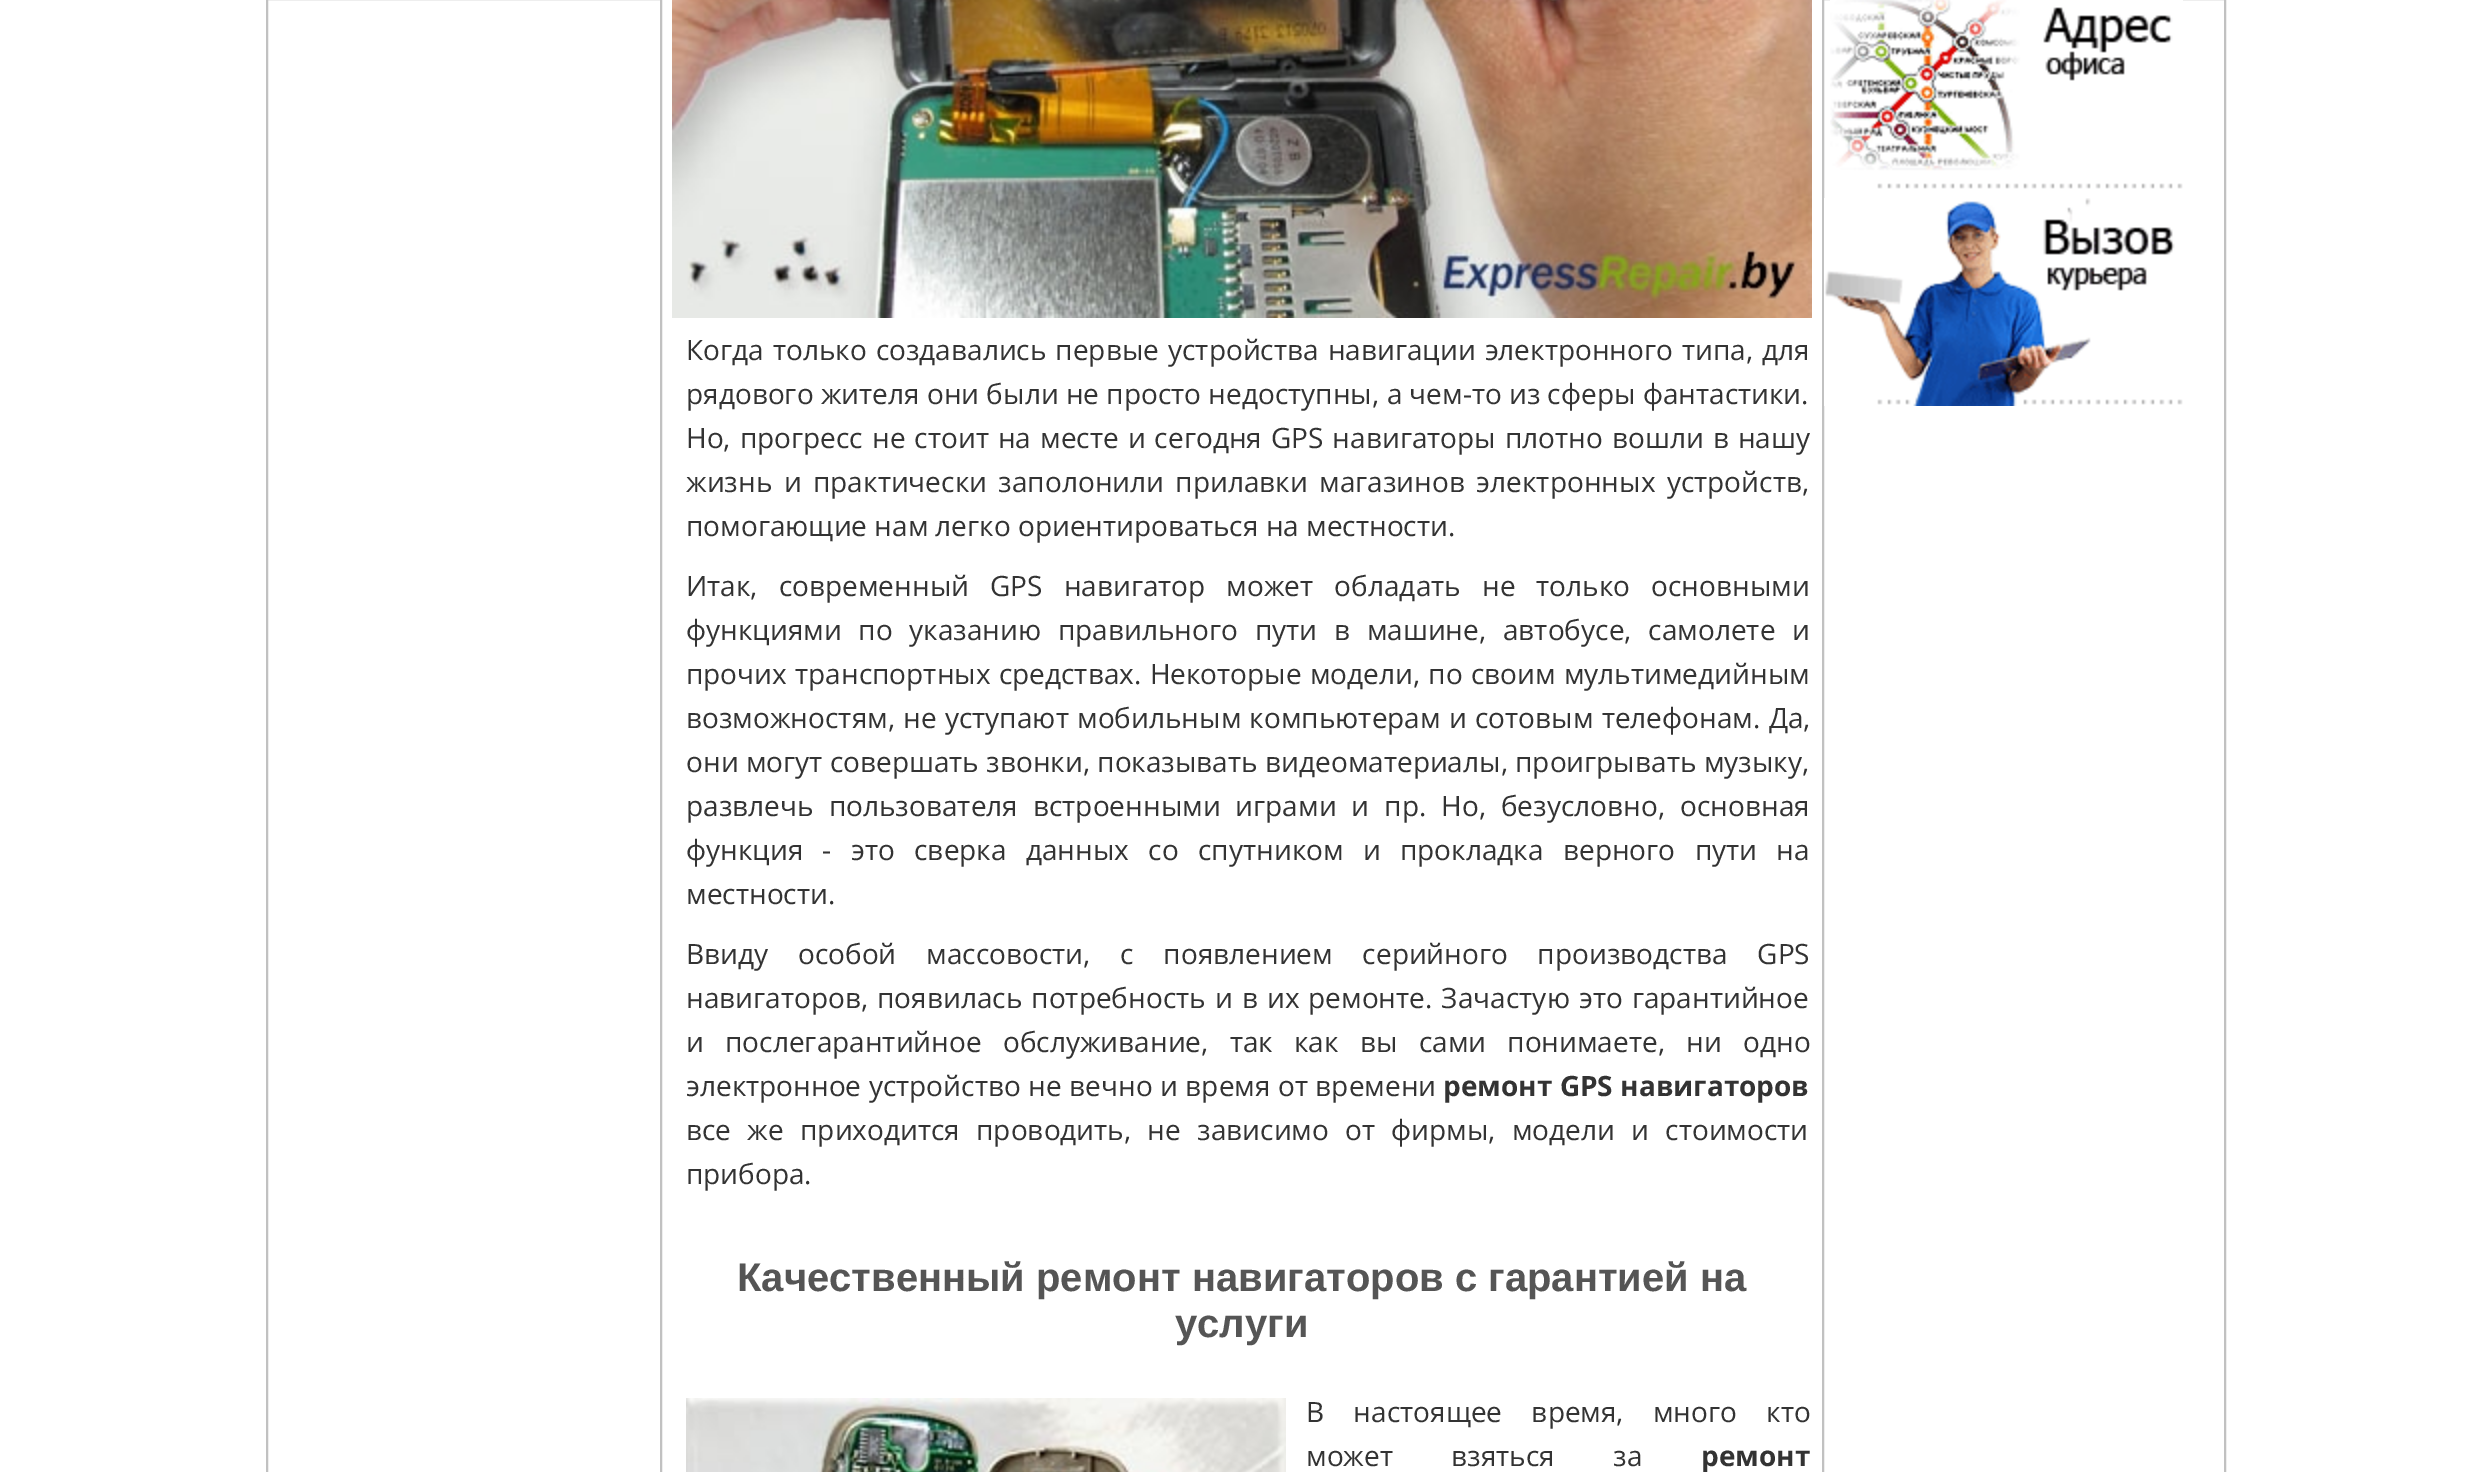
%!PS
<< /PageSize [2492 1472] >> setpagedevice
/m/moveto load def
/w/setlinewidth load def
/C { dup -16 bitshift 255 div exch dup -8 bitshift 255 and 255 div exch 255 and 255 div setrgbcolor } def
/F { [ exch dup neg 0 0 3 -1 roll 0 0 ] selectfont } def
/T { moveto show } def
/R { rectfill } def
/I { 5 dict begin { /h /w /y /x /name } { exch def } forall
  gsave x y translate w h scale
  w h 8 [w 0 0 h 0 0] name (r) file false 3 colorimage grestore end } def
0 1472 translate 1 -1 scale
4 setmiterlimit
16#FFFFFF C
0 0 2492 1472 R
16#C1C1C1 C
2 w
267 -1 394 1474 rectstroke
(1.rgb) 672 0 1140 318 I
/OpenSans-Regular 28 F
16#333333 C
686 360 m 1.75 0 32 (Когда только создавались первые устройства навигации электронного типа, для) widthshow
(рядового жителя они были не просто недоступны, а чем-то из сферы фантастики.) 686 404 T
686 448 m 1.75 0 32 (Но, прогресс не стоит на месте и сегодня GPS навигаторы плотно вошли в нашу) widthshow
686 492 m 4.25 0 32 (жизнь и практически заполонили прилавки магазинов электронных устройств,) widthshow
(помогающие нам легко ориентироваться на местности.) 686 536 T
686 596 m 13.75 0 32 (Итак, современный GPS навигатор может обладать не только основными) widthshow
686 640 m 9.5 0 32 (функциями по указанию правильного пути в машине, автобусе, самолете и) widthshow
686 684 m 1 0 32 (прочих транспортных средствах. Некоторые модели, по своим мультимедийным) widthshow
686 728 m 1 0 32 (возможностям, не уступают мобильным компьютерам и сотовым телефонам. Да,) widthshow
(они могут совершать звонки, показывать видеоматериалы, проигрывать музыку,) 686 772 T
686 816 m 7.75 0 32 (развлечь пользователя встроенными играми и пр. Но, безусловно, основная) widthshow
686 860 m 12.1 0 32 (функция - это сверка данных со спутником и прокладка верного пути на) widthshow
(местности.) 686 904 T
686 964 m 22.5 0 32 (Ввиду особой массовости, с появлением серийного производства GPS) widthshow
686 1008 m 1.75 0 32 (навигаторов, появилась потребность и в их ремонте. Зачастую это гарантийное) widthshow
686 1052 m 14 0 32 (и послегарантийное обслуживание, так как вы сами понимаете, ни одно) widthshow
686 1096 m .25 0 32 (электронное устройство не вечно и время от времени) widthshow
/OpenSans-Bold 28 F
(ремонт GPS навигаторов) 1443 1096 T
/OpenSans-Regular 28 F
686 1140 m 9 0 32 (все же приходится проводить, не зависимо от фирмы, модели и стоимости) widthshow
(прибора.) 686 1184 T
/LiberationSans-Bold 40 F
16#555555 C
(Качественный ремонт навигаторов с гарантией на) 737 1291 T
(услуги) 1175 1337 T
(2.rgb) 686 1398 600 74 I
/OpenSans-Regular 28 F
16#333333 C
1306 1422 m 22 0 32 (В настоящее время, много кто) widthshow
1306 1466 m 51 0 32 (может взяться за) widthshow
/OpenSans-Bold 28 F
(ремонт) 1701 1466 T
16#C1C1C1 C
1823 -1 402 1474 rectstroke
(3.rgb) 1830 0 353 189 I
(4.rgb) 1824 198 359 208 I
showpage
